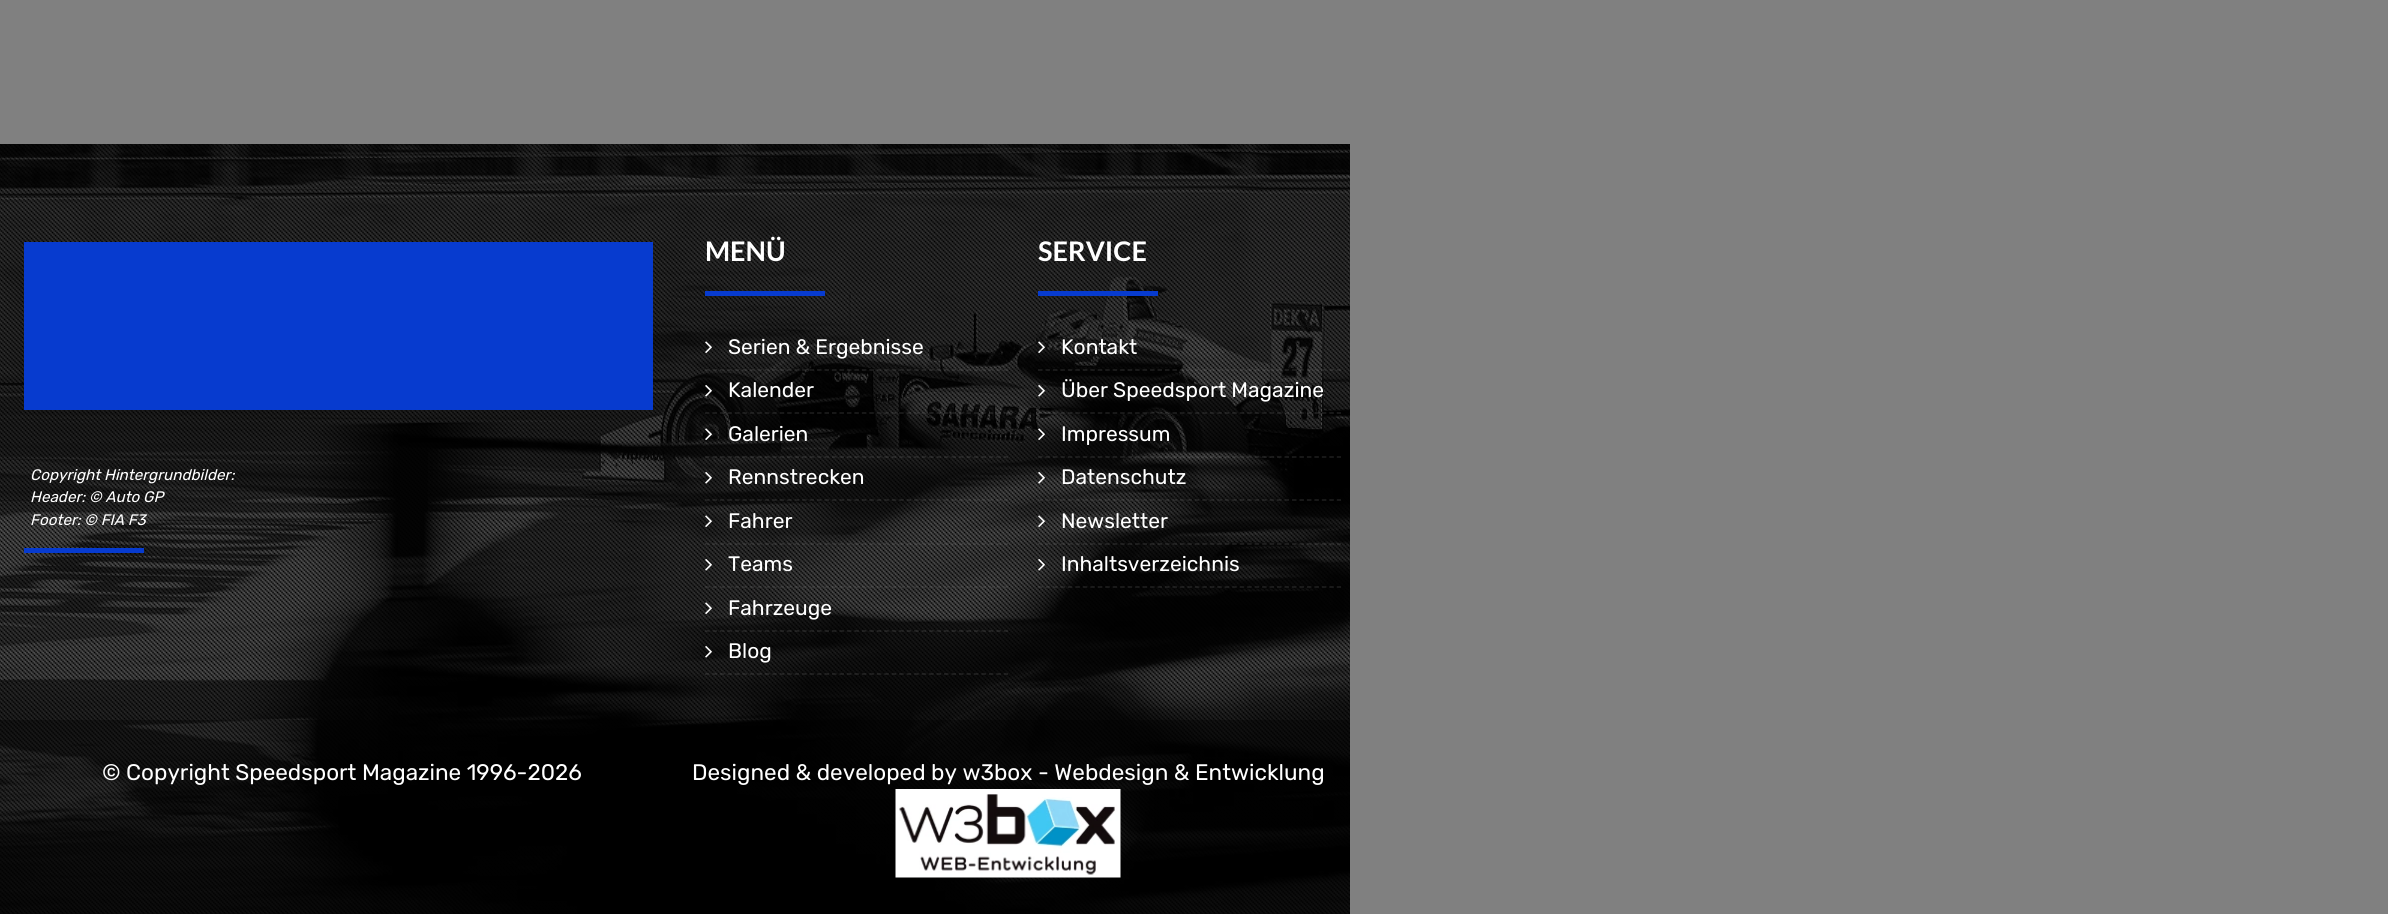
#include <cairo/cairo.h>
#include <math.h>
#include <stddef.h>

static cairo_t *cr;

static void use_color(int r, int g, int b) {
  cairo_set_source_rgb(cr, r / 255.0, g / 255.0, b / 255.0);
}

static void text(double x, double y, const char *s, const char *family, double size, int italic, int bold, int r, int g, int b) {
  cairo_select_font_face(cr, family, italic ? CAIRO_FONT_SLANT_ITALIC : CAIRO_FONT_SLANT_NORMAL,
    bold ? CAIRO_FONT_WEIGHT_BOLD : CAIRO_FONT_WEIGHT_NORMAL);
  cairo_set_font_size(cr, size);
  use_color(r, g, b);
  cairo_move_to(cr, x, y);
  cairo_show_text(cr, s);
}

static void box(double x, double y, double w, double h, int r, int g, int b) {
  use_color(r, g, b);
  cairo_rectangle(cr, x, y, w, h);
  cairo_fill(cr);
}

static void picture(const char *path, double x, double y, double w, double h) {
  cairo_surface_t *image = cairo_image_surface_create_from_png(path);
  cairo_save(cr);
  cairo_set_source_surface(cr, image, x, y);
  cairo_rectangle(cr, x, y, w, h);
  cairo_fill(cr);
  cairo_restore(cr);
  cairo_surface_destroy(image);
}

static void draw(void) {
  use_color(128, 128, 128);
  cairo_paint(cr);
  picture("img_01.png", 0, 144, 1350, 770);
  cairo_set_source_rgba(cr, 0, 0, 0, 0.7);
  cairo_rectangle(cr, 0, 144, 1350, 576);
  cairo_fill(cr);
  picture("img_02.png", 0, 144, 1350, 576);
  box(24, 242, 629, 168, 7, 59, 207);
  box(24, 548, 120, 5, 7, 59, 207);
  box(705, 291, 120, 5, 7, 59, 207);
  cairo_new_path(cr);
  cairo_move_to(cr, 705, 370);
  cairo_line_to(cr, 1008, 370);
  cairo_set_source_rgba(cr, 0.4, 0.4, 0.4, 0.3);
  cairo_set_line_width(cr, 1.5);
  cairo_set_dash(cr, (double[]){4.5, 2.97}, 2, 0);
  cairo_stroke(cr);
  picture("img_03.png", 705, 341, 7, 12);
  cairo_new_path(cr);
  cairo_move_to(cr, 705, 413);
  cairo_line_to(cr, 1008, 413);
  cairo_stroke(cr);
  picture("img_04.png", 705, 385, 7, 12);
  cairo_new_path(cr);
  cairo_move_to(cr, 705, 457);
  cairo_line_to(cr, 1008, 457);
  cairo_stroke(cr);
  picture("img_05.png", 705, 428, 7, 12);
  cairo_new_path(cr);
  cairo_move_to(cr, 705, 500);
  cairo_line_to(cr, 1008, 500);
  cairo_stroke(cr);
  picture("img_06.png", 705, 472, 7, 12);
  cairo_new_path(cr);
  cairo_move_to(cr, 705, 544);
  cairo_line_to(cr, 1008, 544);
  cairo_stroke(cr);
  picture("img_07.png", 705, 515, 7, 12);
  cairo_new_path(cr);
  cairo_move_to(cr, 705, 587);
  cairo_line_to(cr, 1008, 587);
  cairo_stroke(cr);
  picture("img_08.png", 705, 559, 7, 12);
  cairo_new_path(cr);
  cairo_move_to(cr, 705, 631);
  cairo_line_to(cr, 1008, 631);
  cairo_stroke(cr);
  picture("img_09.png", 705, 602, 7, 12);
  cairo_new_path(cr);
  cairo_move_to(cr, 705, 674);
  cairo_line_to(cr, 1008, 674);
  cairo_stroke(cr);
  picture("img_10.png", 705, 646, 7, 12);
  box(1038, 291, 120, 5, 7, 59, 207);
  cairo_new_path(cr);
  cairo_move_to(cr, 1038, 370);
  cairo_line_to(cr, 1341, 370);
  cairo_set_source_rgba(cr, 0.4, 0.4, 0.4, 0.3);
  cairo_stroke(cr);
  picture("img_11.png", 1038, 341, 7, 12);
  cairo_new_path(cr);
  cairo_move_to(cr, 1038, 413);
  cairo_line_to(cr, 1341, 413);
  cairo_stroke(cr);
  picture("img_12.png", 1038, 385, 7, 12);
  cairo_new_path(cr);
  cairo_move_to(cr, 1038, 457);
  cairo_line_to(cr, 1341, 457);
  cairo_stroke(cr);
  picture("img_13.png", 1038, 428, 7, 12);
  cairo_new_path(cr);
  cairo_move_to(cr, 1038, 500);
  cairo_line_to(cr, 1341, 500);
  cairo_stroke(cr);
  picture("img_14.png", 1038, 472, 7, 12);
  cairo_new_path(cr);
  cairo_move_to(cr, 1038, 544);
  cairo_line_to(cr, 1341, 544);
  cairo_stroke(cr);
  picture("img_15.png", 1038, 515, 7, 12);
  cairo_new_path(cr);
  cairo_move_to(cr, 1038, 587);
  cairo_line_to(cr, 1341, 587);
  cairo_stroke(cr);
  picture("img_16.png", 1038, 559, 7, 12);
  cairo_set_source_rgba(cr, 0, 0, 0, 0.8);
  cairo_rectangle(cr, 0, 720, 1350, 194);
  cairo_fill(cr);
  picture("img_17.png", 0, 720, 1350, 194);
  picture("img_18.png", 895, 789, 226, 89);
  text(30, 480, "Copyright Hintergrundbilder:", "Rubik Light", 15.25, 1, 0, 255, 255, 255);
  text(30, 502, "Header: © Auto GP", "Rubik Light", 15.25, 1, 0, 255, 255, 255);
  text(30, 525, "Footer: © FIA F3", "Rubik Light", 15.25, 1, 0, 255, 255, 255);
  text(705, 261, "MENÜ", "Lato", 27, 0, 1, 255, 255, 255);
  text(728, 354, "Serien & Ergebnisse", "Rubik Light", 21, 0, 0, 255, 255, 255);
  text(728, 397, "Kalender", "Rubik Light", 21, 0, 0, 255, 255, 255);
  text(728, 441, "Galerien", "Rubik Light", 21, 0, 0, 255, 255, 255);
  text(728, 484, "Rennstrecken", "Rubik Light", 21, 0, 0, 255, 255, 255);
  text(728, 528, "Fahrer", "Rubik Light", 21, 0, 0, 255, 255, 255);
  text(728, 571, "Teams", "Rubik Light", 21, 0, 0, 255, 255, 255);
  text(728, 615, "Fahrzeuge", "Rubik Light", 21, 0, 0, 255, 255, 255);
  text(728, 658, "Blog", "Rubik Light", 21, 0, 0, 255, 255, 255);
  text(1038, 261, "SERVICE", "Lato", 27, 0, 1, 255, 255, 255);
  text(1061, 354, "Kontakt", "Rubik Light", 21, 0, 0, 255, 255, 255);
  text(1061, 397, "Über Speedsport Magazine", "Rubik Light", 21, 0, 0, 255, 255, 255);
  text(1061, 441, "Impressum", "Rubik Light", 21, 0, 0, 255, 255, 255);
  text(1061, 484, "Datenschutz", "Rubik Light", 21, 0, 0, 255, 255, 255);
  text(1061, 528, "Newsletter", "Rubik Light", 21, 0, 0, 255, 255, 255);
  text(1061, 571, "Inhaltsverzeichnis", "Rubik Light", 21, 0, 0, 255, 255, 255);
  text(102, 780, "© Copyright Speedsport Magazine 1996-2026", "Rubik Light", 22.5, 0, 0, 255, 255, 255);
  text(692, 780, "Designed & developed by w3box - Webdesign & Entwicklung", "Rubik Light", 22.5, 0, 0, 255, 255, 255);
}

int main(void) {
  cairo_surface_t *surface = cairo_image_surface_create(CAIRO_FORMAT_RGB24, 2388, 914);
  cr = cairo_create(surface);
  cairo_font_options_t *options = cairo_font_options_create();
  cairo_font_options_set_hint_metrics(options, CAIRO_HINT_METRICS_OFF);
  cairo_font_options_set_hint_style(options, CAIRO_HINT_STYLE_NONE);
  cairo_set_font_options(cr, options);
  cairo_set_miter_limit(cr, 4);
  draw();
  cairo_surface_write_to_png(surface, "out.png");
  cairo_font_options_destroy(options);
  cairo_destroy(cr);
  cairo_surface_destroy(surface);
  return 0;
}
